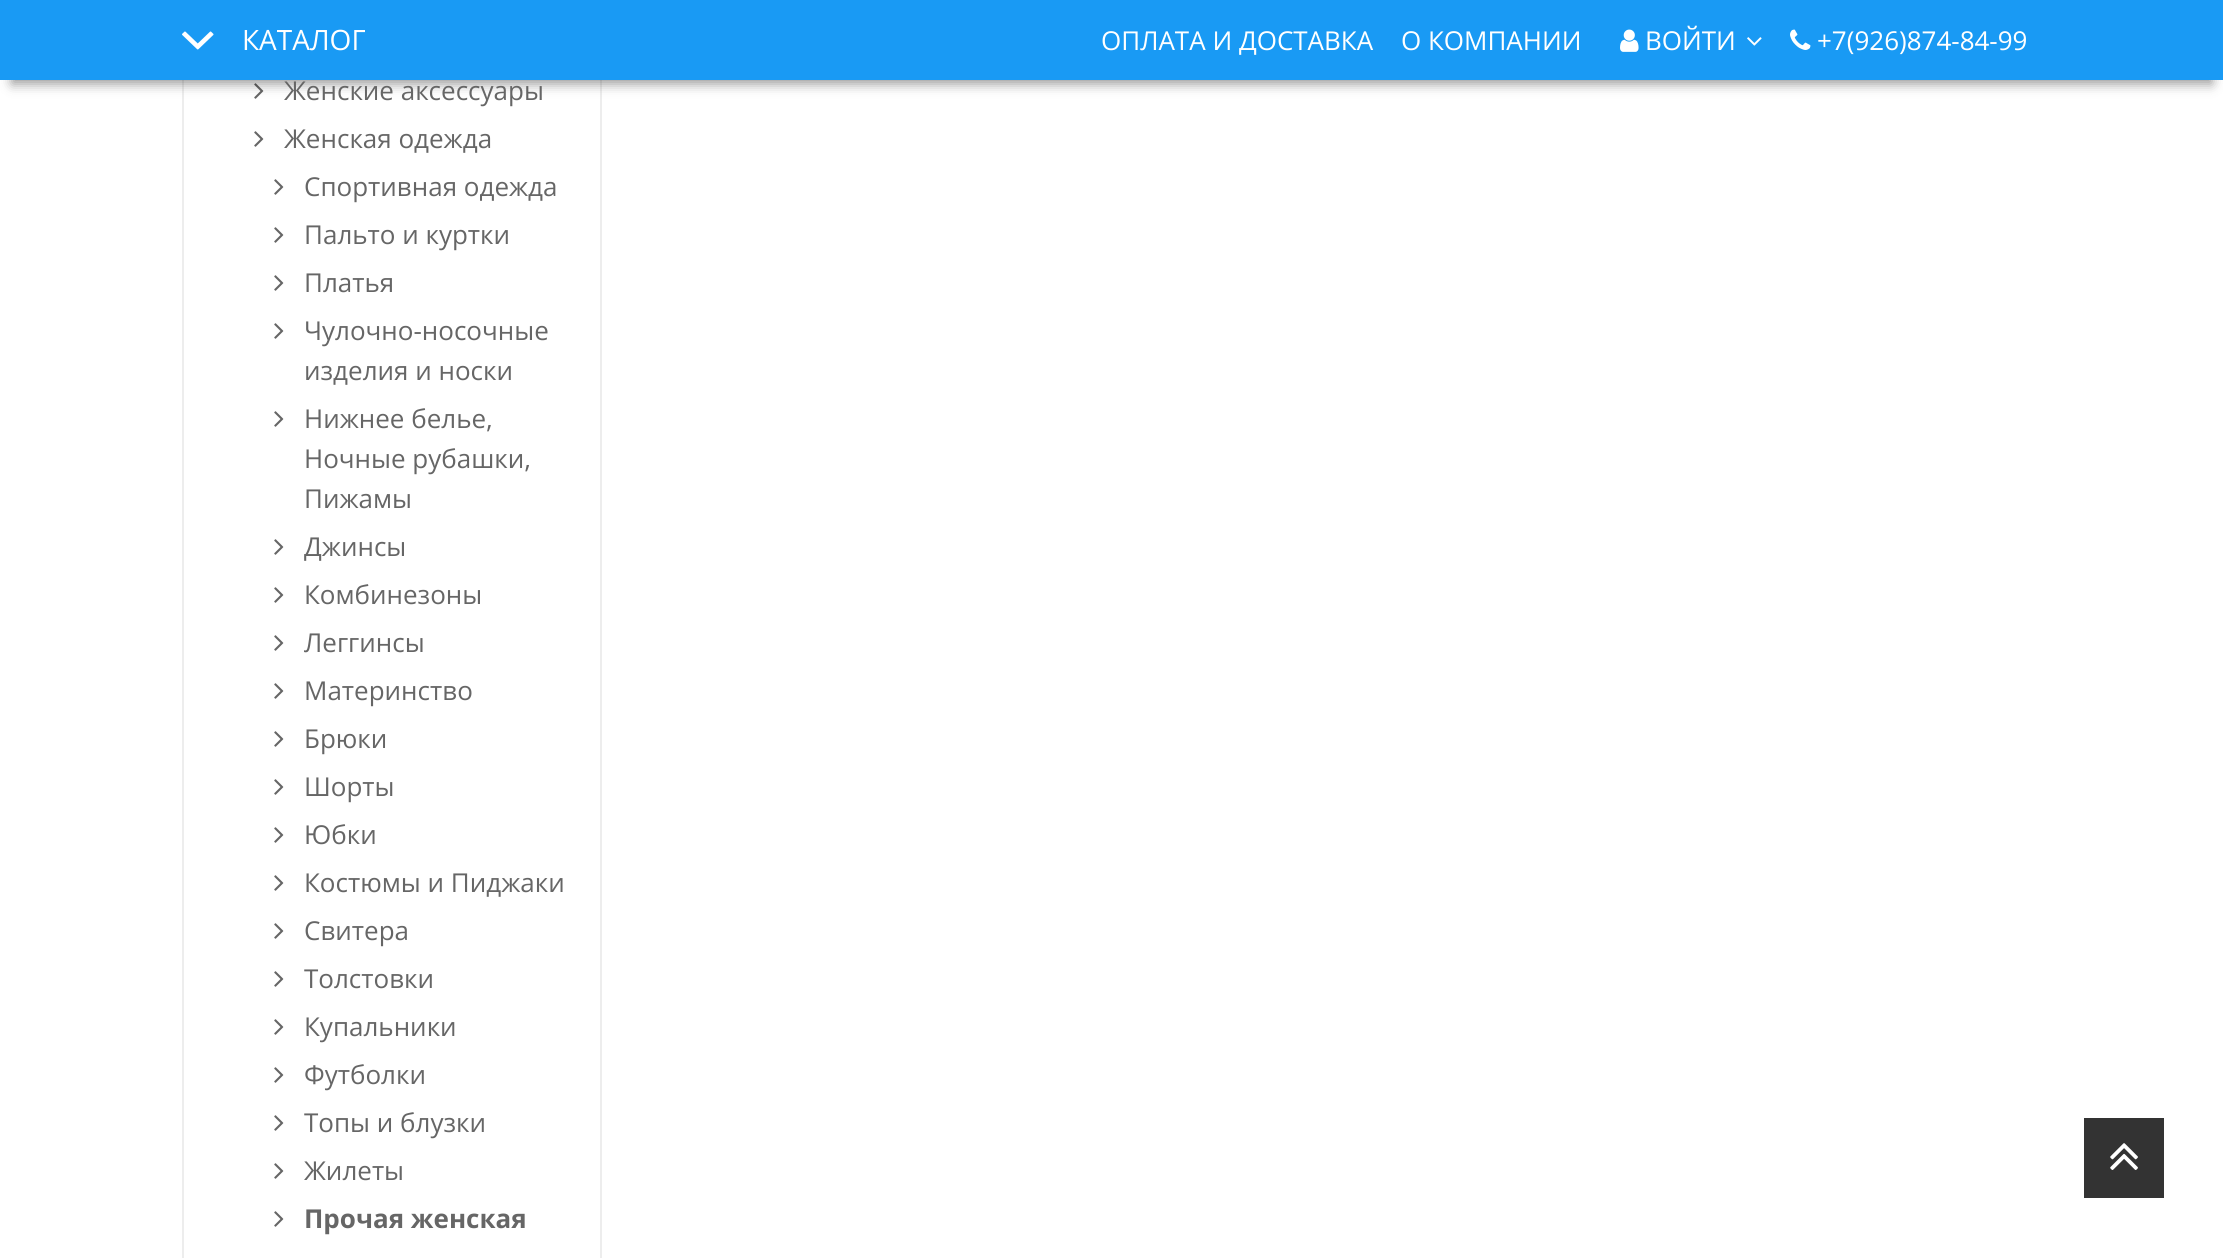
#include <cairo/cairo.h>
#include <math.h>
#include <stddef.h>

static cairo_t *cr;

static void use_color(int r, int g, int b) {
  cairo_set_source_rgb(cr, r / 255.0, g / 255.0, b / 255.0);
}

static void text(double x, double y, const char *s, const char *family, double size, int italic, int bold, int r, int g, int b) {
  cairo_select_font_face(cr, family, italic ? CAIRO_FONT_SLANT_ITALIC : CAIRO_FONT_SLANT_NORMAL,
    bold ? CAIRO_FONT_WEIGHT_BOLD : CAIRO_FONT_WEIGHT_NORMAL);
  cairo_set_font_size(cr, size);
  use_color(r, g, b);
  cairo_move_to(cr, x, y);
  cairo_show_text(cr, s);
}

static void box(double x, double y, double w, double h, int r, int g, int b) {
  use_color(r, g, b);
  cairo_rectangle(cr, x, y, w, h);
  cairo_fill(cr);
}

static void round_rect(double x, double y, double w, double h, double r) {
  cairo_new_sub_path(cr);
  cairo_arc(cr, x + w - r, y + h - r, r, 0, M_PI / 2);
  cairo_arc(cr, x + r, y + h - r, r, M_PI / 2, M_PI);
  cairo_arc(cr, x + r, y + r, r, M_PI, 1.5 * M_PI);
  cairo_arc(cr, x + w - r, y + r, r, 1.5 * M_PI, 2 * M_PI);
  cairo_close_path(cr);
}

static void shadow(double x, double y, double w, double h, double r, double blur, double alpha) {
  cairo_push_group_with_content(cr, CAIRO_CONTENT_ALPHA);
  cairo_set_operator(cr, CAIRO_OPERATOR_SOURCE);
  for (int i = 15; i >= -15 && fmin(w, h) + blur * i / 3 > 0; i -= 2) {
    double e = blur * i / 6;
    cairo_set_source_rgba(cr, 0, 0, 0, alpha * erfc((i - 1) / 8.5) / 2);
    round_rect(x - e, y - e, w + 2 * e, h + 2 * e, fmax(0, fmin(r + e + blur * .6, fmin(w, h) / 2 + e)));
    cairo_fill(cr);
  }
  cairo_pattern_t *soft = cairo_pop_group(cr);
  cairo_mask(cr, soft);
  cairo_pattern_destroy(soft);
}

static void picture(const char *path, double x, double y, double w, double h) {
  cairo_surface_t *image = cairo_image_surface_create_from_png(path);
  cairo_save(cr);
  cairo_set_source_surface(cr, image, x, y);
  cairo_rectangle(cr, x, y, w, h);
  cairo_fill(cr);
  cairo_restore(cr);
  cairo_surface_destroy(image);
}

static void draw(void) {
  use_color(255, 255, 255);
  cairo_paint(cr);
  cairo_rectangle(cr, 183, -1, 418, 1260);
  use_color(237, 237, 237);
  cairo_stroke(cr);
  picture("img_05.png", 254, 83, 10, 16);
  use_color(0, 0, 0);
  shadow(12, 28, 2200, 56, 0, 6, 0.4);
  box(0, 0, 2223, 80, 25, 154, 244);
  picture("img_01.png", 182, 31, 32, 19);
  picture("img_02.png", 1620, 29, 19, 23);
  picture("img_03.png", 1747, 37, 15, 9);
  picture("img_04.png", 1790, 29, 21, 21);
  picture("img_05.png", 254, 131, 10, 16);
  picture("img_05.png", 274, 179, 10, 16);
  picture("img_05.png", 274, 227, 10, 16);
  picture("img_05.png", 274, 275, 10, 16);
  picture("img_05.png", 274, 323, 10, 16);
  picture("img_05.png", 274, 411, 10, 16);
  picture("img_05.png", 274, 539, 10, 16);
  picture("img_05.png", 274, 587, 10, 16);
  picture("img_05.png", 274, 635, 10, 16);
  picture("img_05.png", 274, 683, 10, 16);
  picture("img_05.png", 274, 731, 10, 16);
  picture("img_05.png", 274, 779, 10, 16);
  picture("img_05.png", 274, 827, 10, 16);
  picture("img_05.png", 274, 875, 10, 16);
  picture("img_05.png", 274, 923, 10, 16);
  picture("img_05.png", 274, 971, 10, 16);
  picture("img_05.png", 274, 1019, 10, 16);
  picture("img_05.png", 274, 1067, 10, 16);
  picture("img_05.png", 274, 1115, 10, 16);
  picture("img_05.png", 274, 1163, 10, 16);
  picture("img_05.png", 274, 1211, 10, 16);
  box(2084, 1118, 80, 80, 51, 51, 51);
  picture("img_06.png", 2110, 1143, 28, 27);
  text(242, 50, "КАТАЛОГ", "Open Sans", 28, 0, 0, 255, 255, 255);
  text(1101, 50, "ОПЛАТА И ДОСТАВКА", "Open Sans", 26, 0, 0, 255, 255, 255);
  text(1401, 50, "О КОМПАНИИ", "Open Sans", 26, 0, 0, 255, 255, 255);
  text(1645, 50, "ВОЙТИ", "Open Sans", 26, 0, 0, 255, 255, 255);
  text(1817, 50, "+7(926)874-84-99", "Open Sans", 26, 0, 0, 255, 255, 255);
  text(284, 100, "Женские аксессуары", "Open Sans", 26, 0, 0, 102, 102, 102);
  text(284, 148, "Женская одежда", "Open Sans", 26, 0, 0, 102, 102, 102);
  text(304, 196, "Спортивная одежда", "Open Sans", 26, 0, 0, 102, 102, 102);
  text(304, 244, "Пальто и куртки", "Open Sans", 26, 0, 0, 102, 102, 102);
  text(304, 292, "Платья", "Open Sans", 26, 0, 0, 102, 102, 102);
  text(304, 340, "Чулочно-носочные", "Open Sans", 26, 0, 0, 102, 102, 102);
  text(304, 380, "изделия и носки", "Open Sans", 26, 0, 0, 102, 102, 102);
  text(304, 428, "Нижнее белье,", "Open Sans", 26, 0, 0, 102, 102, 102);
  text(304, 468, "Ночные рубашки,", "Open Sans", 26, 0, 0, 102, 102, 102);
  text(304, 508, "Пижамы", "Open Sans", 26, 0, 0, 102, 102, 102);
  text(304, 556, "Джинсы", "Open Sans", 26, 0, 0, 102, 102, 102);
  text(304, 604, "Комбинезоны", "Open Sans", 26, 0, 0, 102, 102, 102);
  text(304, 652, "Леггинсы", "Open Sans", 26, 0, 0, 102, 102, 102);
  text(304, 700, "Материнство", "Open Sans", 26, 0, 0, 102, 102, 102);
  text(304, 748, "Брюки", "Open Sans", 26, 0, 0, 102, 102, 102);
  text(304, 796, "Шорты", "Open Sans", 26, 0, 0, 102, 102, 102);
  text(304, 844, "Юбки", "Open Sans", 26, 0, 0, 102, 102, 102);
  text(304, 892, "Костюмы и Пиджаки", "Open Sans", 26, 0, 0, 102, 102, 102);
  text(304, 940, "Свитера", "Open Sans", 26, 0, 0, 102, 102, 102);
  text(304, 988, "Толстовки", "Open Sans", 26, 0, 0, 102, 102, 102);
  text(304, 1036, "Купальники", "Open Sans", 26, 0, 0, 102, 102, 102);
  text(304, 1084, "Футболки", "Open Sans", 26, 0, 0, 102, 102, 102);
  text(304, 1132, "Топы и блузки", "Open Sans", 26, 0, 0, 102, 102, 102);
  text(304, 1180, "Жилеты", "Open Sans", 26, 0, 0, 102, 102, 102);
  text(304, 1228, "Прочая женская", "Open Sans", 26, 0, 1, 102, 102, 102);
}

int main(void) {
  cairo_surface_t *surface = cairo_image_surface_create(CAIRO_FORMAT_RGB24, 2223, 1258);
  cr = cairo_create(surface);
  cairo_font_options_t *options = cairo_font_options_create();
  cairo_font_options_set_hint_metrics(options, CAIRO_HINT_METRICS_OFF);
  cairo_font_options_set_hint_style(options, CAIRO_HINT_STYLE_NONE);
  cairo_set_font_options(cr, options);
  cairo_set_miter_limit(cr, 4);
  draw();
  cairo_surface_write_to_png(surface, "out.png");
  cairo_font_options_destroy(options);
  cairo_destroy(cr);
  cairo_surface_destroy(surface);
  return 0;
}
